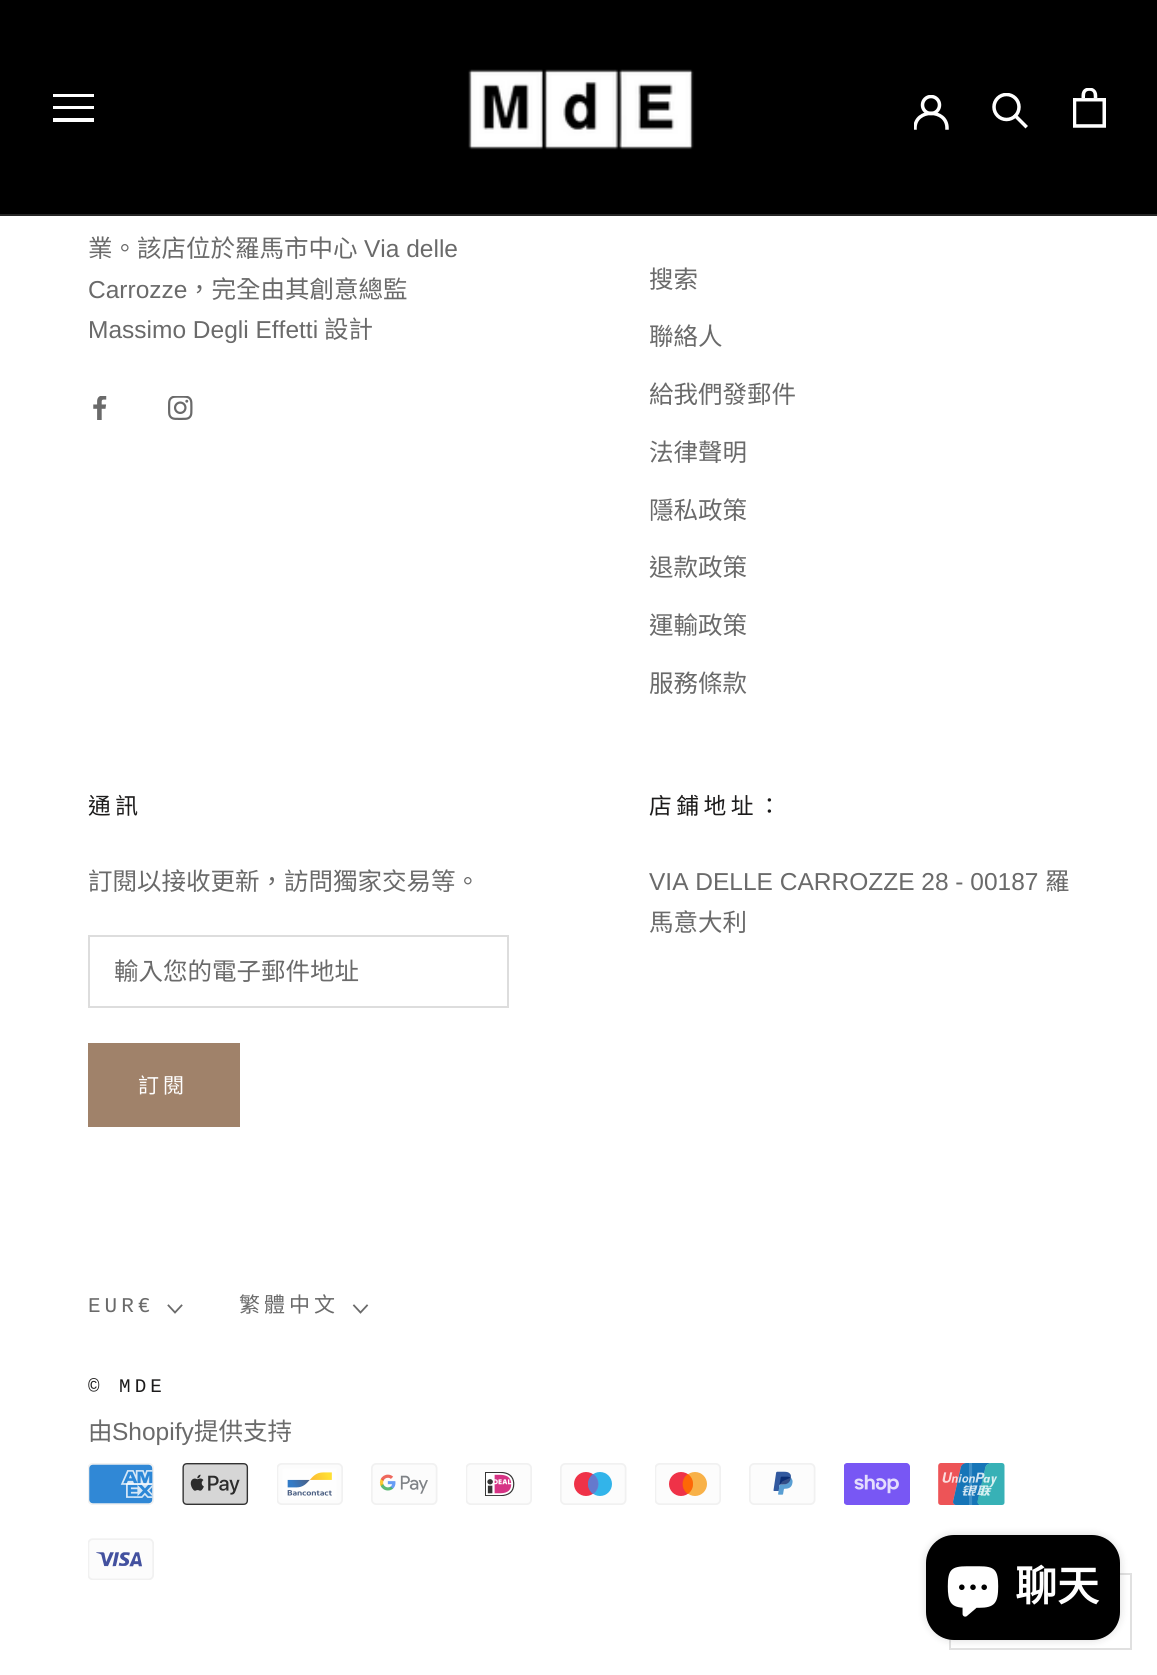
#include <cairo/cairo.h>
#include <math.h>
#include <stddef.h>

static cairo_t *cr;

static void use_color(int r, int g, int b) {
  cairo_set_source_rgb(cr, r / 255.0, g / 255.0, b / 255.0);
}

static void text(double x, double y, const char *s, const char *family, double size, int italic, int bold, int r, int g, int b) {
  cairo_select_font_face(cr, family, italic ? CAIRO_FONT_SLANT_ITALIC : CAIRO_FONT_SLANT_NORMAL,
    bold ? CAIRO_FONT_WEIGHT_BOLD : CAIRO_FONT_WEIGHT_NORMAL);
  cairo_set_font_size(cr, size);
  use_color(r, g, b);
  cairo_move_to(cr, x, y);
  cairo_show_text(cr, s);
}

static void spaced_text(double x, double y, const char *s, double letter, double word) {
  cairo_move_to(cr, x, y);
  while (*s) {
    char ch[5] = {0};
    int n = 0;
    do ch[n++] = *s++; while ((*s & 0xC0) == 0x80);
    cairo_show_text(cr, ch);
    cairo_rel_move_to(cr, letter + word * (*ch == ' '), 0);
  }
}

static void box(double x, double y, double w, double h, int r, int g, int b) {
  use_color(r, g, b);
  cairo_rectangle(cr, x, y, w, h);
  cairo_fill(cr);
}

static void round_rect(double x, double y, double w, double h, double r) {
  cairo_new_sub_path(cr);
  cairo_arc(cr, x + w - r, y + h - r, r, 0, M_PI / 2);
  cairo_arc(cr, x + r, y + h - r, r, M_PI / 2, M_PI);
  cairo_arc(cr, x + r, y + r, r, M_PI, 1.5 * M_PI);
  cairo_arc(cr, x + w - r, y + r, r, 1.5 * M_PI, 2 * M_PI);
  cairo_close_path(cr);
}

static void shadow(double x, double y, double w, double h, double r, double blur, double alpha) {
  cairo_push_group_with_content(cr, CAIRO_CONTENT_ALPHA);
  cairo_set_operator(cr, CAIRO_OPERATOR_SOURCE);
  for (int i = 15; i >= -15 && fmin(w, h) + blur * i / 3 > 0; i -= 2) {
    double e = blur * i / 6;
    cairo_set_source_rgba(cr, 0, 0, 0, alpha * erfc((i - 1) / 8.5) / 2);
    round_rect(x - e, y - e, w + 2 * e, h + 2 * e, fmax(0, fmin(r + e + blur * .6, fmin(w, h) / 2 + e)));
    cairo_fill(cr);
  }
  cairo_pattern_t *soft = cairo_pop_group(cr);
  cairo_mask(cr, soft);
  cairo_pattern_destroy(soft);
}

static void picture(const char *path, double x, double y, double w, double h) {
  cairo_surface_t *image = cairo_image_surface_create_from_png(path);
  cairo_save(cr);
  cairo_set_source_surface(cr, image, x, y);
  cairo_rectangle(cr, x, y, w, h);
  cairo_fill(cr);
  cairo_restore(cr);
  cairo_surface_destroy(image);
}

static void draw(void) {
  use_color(255, 255, 255);
  cairo_paint(cr);
  box(0, 0, 1157, 214, 0, 0, 0);
  box(0, 214, 1157, 2, 38, 38, 38);
  cairo_save(cr);
  cairo_rectangle(cr, 53, 93, 42, 30);
  cairo_clip(cr);
  use_color(255, 255, 255);
  cairo_new_path(cr);
  cairo_move_to(cr, 52, 122);
  cairo_line_to(cr, 52, 118);
  cairo_line_to(cr, 94, 118);
  cairo_line_to(cr, 94, 122);
  cairo_close_path(cr);
  cairo_move_to(cr, 52, 106);
  cairo_line_to(cr, 94, 106);
  cairo_line_to(cr, 94, 109);
  cairo_line_to(cr, 52, 109);
  cairo_close_path(cr);
  cairo_move_to(cr, 52, 94);
  cairo_line_to(cr, 94, 94);
  cairo_line_to(cr, 94, 97);
  cairo_line_to(cr, 52, 97);
  cairo_close_path(cr);
  cairo_fill(cr);
  cairo_restore(cr);
  picture("img_01.png", 468, 69, 226, 81);
  cairo_save(cr);
  cairo_rectangle(cr, 914, 95, 35, 35);
  cairo_clip(cr);
  cairo_new_path(cr);
  cairo_move_to(cr, 915, 128);
  cairo_curve_to(cr, 915, 108.5, 947, 108.5, 947, 128);
  use_color(255, 255, 255);
  cairo_set_line_width(cr, 3.5);
  cairo_set_line_cap(cr, CAIRO_LINE_CAP_SQUARE);
  cairo_stroke(cr);
  cairo_arc(cr, 931, 105, 8.5, 0, 2 * M_PI);
  cairo_set_line_cap(cr, CAIRO_LINE_CAP_BUTT);
  cairo_stroke(cr);
  cairo_restore(cr);
  cairo_new_path(cr);
  cairo_move_to(cr, 1025.5, 126);
  cairo_line_to(cr, 1015.5, 116);
  use_color(255, 255, 255);
  cairo_set_line_width(cr, 3.5);
  cairo_set_line_cap(cr, CAIRO_LINE_CAP_SQUARE);
  cairo_stroke(cr);
  cairo_save(cr);
  cairo_rectangle(cr, 992, 93, 37, 37);
  cairo_clip(cr);
  cairo_arc(cr, 1006.5, 107, 12.5, 0, 2 * M_PI);
  cairo_set_line_cap(cr, CAIRO_LINE_CAP_BUTT);
  cairo_stroke(cr);
  cairo_restore(cr);
  picture("img_02.png", 1073, 88, 33, 40);
  picture("img_03.png", 93, 396, 14, 24);
  picture("img_04.png", 168, 396, 25, 24);
  cairo_rectangle(cr, 89, 936, 419, 71);
  use_color(221, 221, 221);
  cairo_set_line_width(cr, 2);
  cairo_set_line_cap(cr, CAIRO_LINE_CAP_BUTT);
  cairo_stroke(cr);
  cairo_rectangle(cr, 89, 1044, 150, 82);
  use_color(160, 130, 106);
  cairo_stroke(cr);
  box(90, 1045, 148, 80, 160, 130, 106);
  cairo_new_path(cr);
  cairo_move_to(cr, 181.5, 1305.5);
  cairo_line_to(cr, 175, 1312.5);
  cairo_line_to(cr, 168.5, 1305.5);
  use_color(106, 106, 106);
  cairo_set_line_width(cr, 1.8);
  cairo_set_line_cap(cr, CAIRO_LINE_CAP_SQUARE);
  cairo_stroke(cr);
  cairo_new_path(cr);
  cairo_move_to(cr, 367, 1305.5);
  cairo_line_to(cr, 360.5, 1312.5);
  cairo_line_to(cr, 354, 1305.5);
  cairo_stroke(cr);
  picture("img_05.png", 88, 1463, 66, 42);
  picture("img_06.png", 182, 1463, 67, 42);
  picture("img_07.png", 277, 1463, 66, 42);
  picture("img_08.png", 371, 1463, 67, 42);
  picture("img_09.png", 466, 1463, 66, 42);
  picture("img_10.png", 560, 1463, 67, 42);
  picture("img_11.png", 655, 1463, 66, 42);
  picture("img_12.png", 749, 1463, 67, 42);
  picture("img_13.png", 844, 1463, 66, 42);
  picture("img_14.png", 938, 1463, 67, 42);
  picture("img_15.png", 88, 1538, 66, 42);
  cairo_rectangle(cr, 950, 1574, 181, 75);
  use_color(224, 224, 224);
  cairo_set_line_width(cr, 2);
  cairo_set_line_cap(cr, CAIRO_LINE_CAP_BUTT);
  cairo_stroke(cr);
  use_color(0, 0, 0);
  shadow(926, 1535, 194, 105, 28, 4.5, 0.15);
  use_color(0, 0, 0);
  round_rect(926, 1535, 194, 105, 28);
  cairo_fill(cr);
  picture("img_16.png", 947, 1566, 52, 51);
  text(88, 257, "業。該店位於羅馬市中心", "Noto Sans CJK TC", 24.5, 0, 0, 106, 106, 106);
  text(364, 257, "Via delle", "Liberation Sans", 24.5, 0, 0, 106, 106, 106);
  text(88, 298, "Carrozze", "Liberation Sans", 24.5, 0, 0, 106, 106, 106);
  text(187, 298, "，完全由其創意總監", "Noto Sans CJK TC", 24.5, 0, 0, 106, 106, 106);
  text(88, 338, "Massimo Degli Effetti", "Liberation Sans", 24.5, 0, 0, 106, 106, 106);
  text(324, 338, "設計", "Noto Sans CJK TC", 24.5, 0, 0, 106, 106, 106);
  text(649, 288, "搜索", "Noto Sans CJK TC", 24.5, 0, 0, 106, 106, 106);
  text(649, 345, "聯絡人", "Noto Sans CJK TC", 24.5, 0, 0, 106, 106, 106);
  text(649, 403, "給我們發郵件", "Noto Sans CJK TC", 24.5, 0, 0, 106, 106, 106);
  text(649, 461, "法律聲明", "Noto Sans CJK TC", 24.5, 0, 0, 106, 106, 106);
  text(649, 519, "隱私政策", "Noto Sans CJK TC", 24.5, 0, 0, 106, 106, 106);
  text(649, 576, "退款政策", "Noto Sans CJK TC", 24.5, 0, 0, 106, 106, 106);
  text(649, 634, "運輸政策", "Noto Sans CJK TC", 24.5, 0, 0, 106, 106, 106);
  text(649, 692, "服務條款", "Noto Sans CJK TC", 24.5, 0, 0, 106, 106, 106);
  cairo_set_font_size(cr, 22.75);
  use_color(28, 27, 27);
  spaced_text(88, 814, "通訊", 4.5, 0);
  text(88, 890, "訂閱以接收更新，訪問獨家交易等。", "Noto Sans CJK TC", 24.5, 0, 0, 106, 106, 106);
  text(114, 980, "輸入您的電子郵件地址", "Noto Sans CJK TC", 24.5, 0, 0, 106, 106, 106);
  cairo_set_font_size(cr, 21);
  use_color(255, 255, 255);
  spaced_text(138, 1093, "訂閱", 4, 0);
  cairo_set_font_size(cr, 22.75);
  use_color(28, 27, 27);
  spaced_text(649, 814, "店鋪地址：", 4.5, 0);
  text(649, 890, "VIA DELLE CARROZZE 28 - 00187", "Liberation Sans", 24.5, 0, 0, 106, 106, 106);
  text(1045, 890, "羅", "Noto Sans CJK TC", 24.5, 0, 0, 106, 106, 106);
  text(649, 931, "馬意大利", "Noto Sans CJK TC", 24.5, 0, 0, 106, 106, 106);
  cairo_select_font_face(cr, "Liberation Mono", CAIRO_FONT_SLANT_NORMAL, CAIRO_FONT_WEIGHT_NORMAL);
  cairo_set_font_size(cr, 21);
  spaced_text(88, 1312, "EUR€", 4, 0);
  cairo_select_font_face(cr, "Noto Sans CJK TC", CAIRO_FONT_SLANT_NORMAL, CAIRO_FONT_WEIGHT_NORMAL);
  spaced_text(239, 1312, "繁體中文", 4, 0);
  cairo_select_font_face(cr, "Liberation Mono", CAIRO_FONT_SLANT_NORMAL, CAIRO_FONT_WEIGHT_NORMAL);
  cairo_set_font_size(cr, 19.25);
  use_color(28, 27, 27);
  spaced_text(88, 1392, "© MDE", 4, 0);
  text(88, 1440, "由", "Noto Sans CJK TC", 24.5, 0, 0, 106, 106, 106);
  text(112, 1440, "Shopify", "Liberation Sans", 24.5, 0, 0, 106, 106, 106);
  text(194, 1440, "提供支持", "Noto Sans CJK TC", 24.5, 0, 0, 106, 106, 106);
  text(1015, 1601, "聊天", "Noto Sans CJK TC", 42, 0, 1, 255, 255, 255);
}

int main(void) {
  cairo_surface_t *surface = cairo_image_surface_create(CAIRO_FORMAT_RGB24, 1157, 1675);
  cr = cairo_create(surface);
  cairo_font_options_t *options = cairo_font_options_create();
  cairo_font_options_set_hint_metrics(options, CAIRO_HINT_METRICS_OFF);
  cairo_font_options_set_hint_style(options, CAIRO_HINT_STYLE_NONE);
  cairo_set_font_options(cr, options);
  cairo_set_miter_limit(cr, 4);
  draw();
  cairo_surface_write_to_png(surface, "out.png");
  cairo_font_options_destroy(options);
  cairo_destroy(cr);
  cairo_surface_destroy(surface);
  return 0;
}
